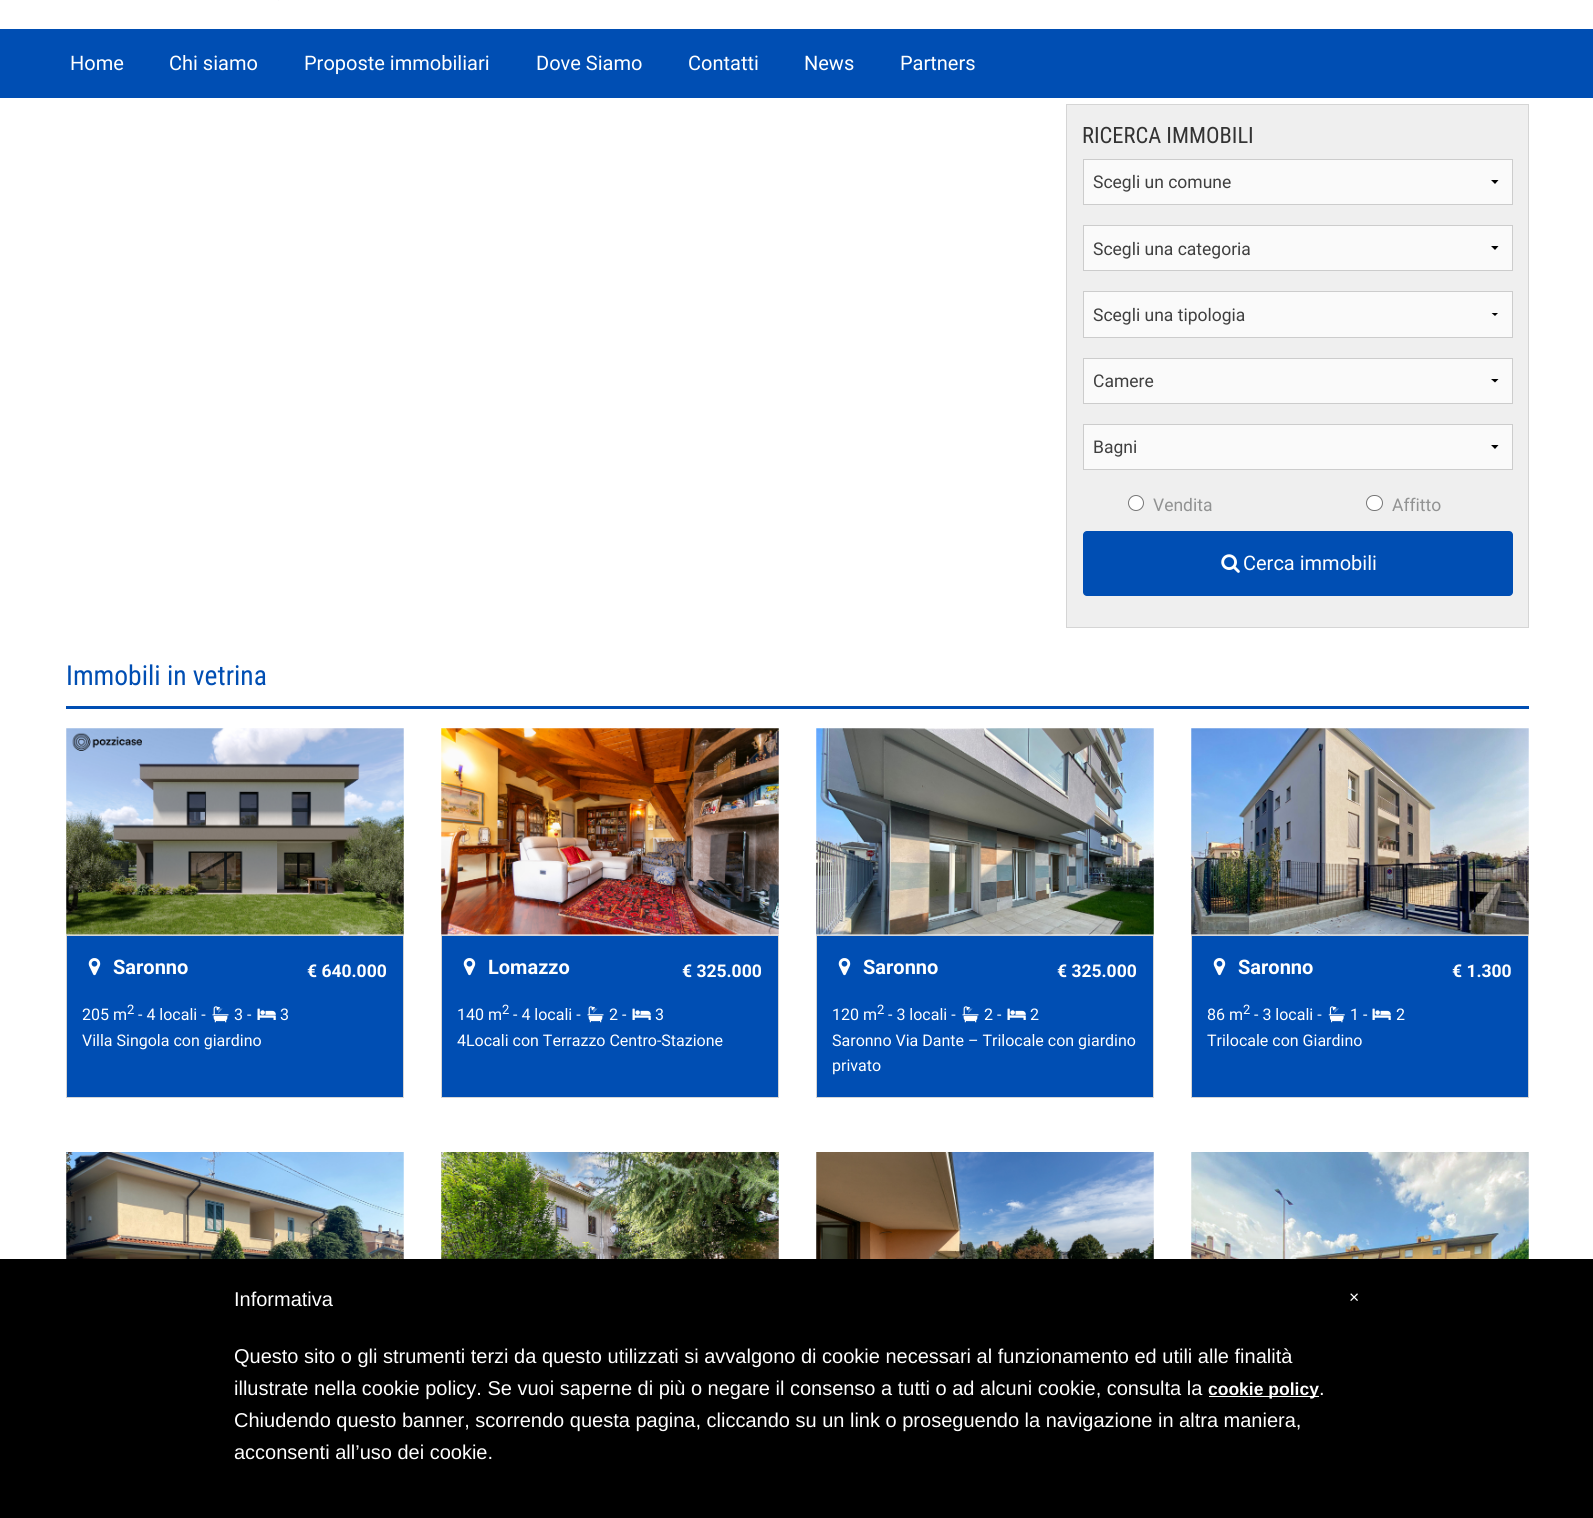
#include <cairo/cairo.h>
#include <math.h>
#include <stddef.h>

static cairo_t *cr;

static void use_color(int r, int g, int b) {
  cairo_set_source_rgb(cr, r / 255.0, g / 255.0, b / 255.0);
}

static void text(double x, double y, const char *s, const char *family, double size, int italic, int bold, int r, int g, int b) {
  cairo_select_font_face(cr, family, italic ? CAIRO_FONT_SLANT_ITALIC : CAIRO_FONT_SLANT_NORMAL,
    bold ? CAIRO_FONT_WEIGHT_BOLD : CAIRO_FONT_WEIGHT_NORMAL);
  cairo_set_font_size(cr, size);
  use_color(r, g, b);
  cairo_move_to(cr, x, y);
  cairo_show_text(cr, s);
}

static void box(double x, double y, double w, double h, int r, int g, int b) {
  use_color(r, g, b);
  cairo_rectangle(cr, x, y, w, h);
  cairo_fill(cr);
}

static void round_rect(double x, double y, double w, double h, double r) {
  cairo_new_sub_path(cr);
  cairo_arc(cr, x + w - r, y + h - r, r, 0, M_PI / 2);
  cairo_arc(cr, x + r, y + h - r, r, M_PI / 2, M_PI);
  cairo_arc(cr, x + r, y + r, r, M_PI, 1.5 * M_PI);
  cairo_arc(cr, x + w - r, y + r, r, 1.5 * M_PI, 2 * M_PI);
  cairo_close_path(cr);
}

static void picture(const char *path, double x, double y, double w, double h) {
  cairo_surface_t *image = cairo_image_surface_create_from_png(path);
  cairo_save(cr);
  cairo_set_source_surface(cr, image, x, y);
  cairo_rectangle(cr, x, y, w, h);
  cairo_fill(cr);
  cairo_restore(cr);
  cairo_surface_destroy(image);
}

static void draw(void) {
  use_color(255, 255, 255);
  cairo_paint(cr);
  box(278, 0, 1, 1, 251, 250, 252);
  box(0, 29, 1593, 69, 0, 78, 179);
  use_color(239, 239, 239);
  cairo_rectangle(cr, 1066.5, 104.5, 462, 523);
  cairo_fill_preserve(cr);
  use_color(213, 213, 213);
  cairo_set_line_width(cr, 1);
  cairo_stroke(cr);
  box(1084, 160, 428, 44, 250, 250, 250);
  use_color(0, 0, 0);
  cairo_new_path(cr);
  cairo_move_to(cr, 1498.5, 180);
  cairo_line_to(cr, 1495, 184);
  cairo_line_to(cr, 1491, 180);
  cairo_close_path(cr);
  cairo_fill(cr);
  cairo_rectangle(cr, 1083.5, 159.5, 429, 45);
  use_color(204, 204, 204);
  cairo_stroke(cr);
  box(1084, 226, 428, 44, 250, 250, 250);
  use_color(0, 0, 0);
  cairo_new_path(cr);
  cairo_move_to(cr, 1498.5, 246);
  cairo_line_to(cr, 1495, 250);
  cairo_line_to(cr, 1491, 246);
  cairo_close_path(cr);
  cairo_fill(cr);
  cairo_rectangle(cr, 1083.5, 225.5, 429, 45);
  use_color(204, 204, 204);
  cairo_stroke(cr);
  box(1084, 292, 428, 45, 250, 250, 250);
  cairo_save(cr);
  cairo_rectangle(cr, 1480, 313, 30, 4);
  cairo_clip(cr);
  use_color(0, 0, 0);
  cairo_new_path(cr);
  cairo_move_to(cr, 1498.5, 312.5);
  cairo_line_to(cr, 1495, 316);
  cairo_line_to(cr, 1491, 312.5);
  cairo_close_path(cr);
  cairo_fill(cr);
  cairo_restore(cr);
  cairo_rectangle(cr, 1083.5, 291.5, 429, 46);
  use_color(204, 204, 204);
  cairo_stroke(cr);
  box(1084, 359, 428, 44, 250, 250, 250);
  use_color(0, 0, 0);
  cairo_new_path(cr);
  cairo_move_to(cr, 1498.5, 379);
  cairo_line_to(cr, 1495, 382.5);
  cairo_line_to(cr, 1491, 379);
  cairo_close_path(cr);
  cairo_fill(cr);
  cairo_rectangle(cr, 1083.5, 358.5, 429, 45);
  use_color(204, 204, 204);
  cairo_stroke(cr);
  box(1084, 425, 428, 44, 250, 250, 250);
  use_color(0, 0, 0);
  cairo_new_path(cr);
  cairo_move_to(cr, 1498.5, 445);
  cairo_line_to(cr, 1495, 449);
  cairo_line_to(cr, 1491, 445);
  cairo_close_path(cr);
  cairo_fill(cr);
  cairo_rectangle(cr, 1083.5, 424.5, 429, 45);
  use_color(204, 204, 204);
  cairo_stroke(cr);
  use_color(255, 255, 255);
  cairo_arc(cr, 1136, 503, 7.5, 0, 2 * M_PI);
  cairo_fill_preserve(cr);
  use_color(118, 118, 118);
  cairo_stroke(cr);
  use_color(255, 255, 255);
  round_rect(1366.5, 495.5, 16, 15, 7.5);
  cairo_fill_preserve(cr);
  use_color(118, 118, 118);
  cairo_stroke(cr);
  use_color(0, 78, 179);
  round_rect(1083, 531, 430, 65, 4);
  cairo_fill(cr);
  picture("img_01.png", 1221, 554, 19, 19);
  box(66, 706, 1463, 3, 0, 78, 179);
  picture("img_02.png", 66, 728, 338, 207);
  cairo_rectangle(cr, 66.5, 935.5, 337, 162);
  cairo_fill_preserve(cr);
  use_color(213, 213, 213);
  cairo_stroke(cr);
  picture("img_03.png", 88, 958, 13, 18);
  picture("img_04.png", 212, 1006, 17, 17);
  picture("img_05.png", 257, 1008, 19, 12);
  picture("img_06.png", 441, 728, 338, 207);
  use_color(0, 78, 179);
  cairo_rectangle(cr, 441.5, 935.5, 337, 162);
  cairo_fill_preserve(cr);
  use_color(213, 213, 213);
  cairo_stroke(cr);
  picture("img_03.png", 463, 958, 13, 18);
  picture("img_04.png", 587, 1006, 17, 17);
  picture("img_05.png", 632, 1008, 19, 12);
  picture("img_07.png", 816, 728, 338, 207);
  use_color(0, 78, 179);
  cairo_rectangle(cr, 816.5, 935.5, 337, 162);
  cairo_fill_preserve(cr);
  use_color(213, 213, 213);
  cairo_stroke(cr);
  picture("img_03.png", 838, 958, 13, 18);
  picture("img_04.png", 962, 1006, 17, 17);
  picture("img_05.png", 1007, 1008, 19, 12);
  picture("img_08.png", 1191, 728, 338, 207);
  use_color(0, 78, 179);
  cairo_rectangle(cr, 1191.5, 935.5, 337, 162);
  cairo_fill_preserve(cr);
  use_color(213, 213, 213);
  cairo_stroke(cr);
  picture("img_03.png", 1213, 958, 13, 18);
  picture("img_09.png", 1328, 1006, 17, 17);
  picture("img_05.png", 1372, 1008, 19, 12);
  picture("img_10.png", 66, 1152, 338, 107);
  picture("img_11.png", 441, 1152, 338, 107);
  picture("img_12.png", 816, 1152, 338, 107);
  picture("img_13.png", 1191, 1152, 338, 107);
  box(0, 1259, 1593, 259, 0, 0, 0);
  box(1209, 1396, 110, 1, 255, 255, 255);
  text(70, 70, "Home", "Roboto", 20, 0, 0, 255, 255, 255);
  text(169, 70, "Chi siamo", "Roboto", 20, 0, 0, 255, 255, 255);
  text(304, 70, "Proposte immobiliari", "Roboto", 20, 0, 0, 255, 255, 255);
  text(536, 70, "Dove Siamo", "Roboto", 20, 0, 0, 255, 255, 255);
  text(688, 70, "Contatti", "Roboto", 20, 0, 0, 255, 255, 255);
  text(804, 70, "News", "Roboto", 20, 0, 0, 255, 255, 255);
  text(900, 70, "Partners", "Roboto", 20, 0, 0, 255, 255, 255);
  text(1082, 143, "RICERCA IMMOBILI", "Roboto Condensed", 22.5, 0, 0, 51, 51, 51);
  text(1093, 188, "Scegli un comune", "Roboto", 17.5, 0, 0, 63, 63, 63);
  text(1093, 255, "Scegli una categoria", "Roboto", 17.5, 0, 0, 63, 63, 63);
  text(1093, 321, "Scegli una tipologia", "Roboto", 17.5, 0, 0, 63, 63, 63);
  text(1093, 387, "Camere", "Roboto", 17.5, 0, 0, 63, 63, 63);
  text(1093, 453, "Bagni", "Roboto", 17.5, 0, 0, 63, 63, 63);
  text(1153, 511, "Vendita", "Roboto", 17.5, 0, 0, 145, 146, 146);
  text(1392, 511, "Affitto", "Roboto", 17.5, 0, 0, 145, 146, 146);
  text(1243, 570, "Cerca immobili", "Roboto", 20, 0, 0, 255, 255, 255);
  text(66, 685, "Immobili in vetrina", "Roboto Condensed", 27.5, 0, 0, 0, 78, 179);
  text(113, 974, "Saronno", "Roboto", 20, 0, 1, 255, 255, 255);
  text(307, 977, "€ 640.000", "Roboto", 17.5, 0, 1, 255, 255, 255);
  text(82, 1020, "205 m", "Roboto", 16, 0, 0, 255, 255, 255);
  text(127, 1014, "2", "Roboto", 13, 0, 0, 255, 255, 255);
  text(138, 1020, "- 4 locali -", "Roboto", 16, 0, 0, 255, 255, 255);
  text(234, 1020, "3 -", "Roboto", 16, 0, 0, 255, 255, 255);
  text(280, 1020, "3", "Roboto", 16, 0, 0, 255, 255, 255);
  text(82, 1046, "Villa Singola con giardino", "Roboto", 16, 0, 0, 255, 255, 255);
  text(488, 974, "Lomazzo", "Roboto", 20, 0, 1, 255, 255, 255);
  text(682, 977, "€ 325.000", "Roboto", 17.5, 0, 1, 255, 255, 255);
  text(457, 1020, "140 m", "Roboto", 16, 0, 0, 255, 255, 255);
  text(502, 1014, "2", "Roboto", 13, 0, 0, 255, 255, 255);
  text(513, 1020, "- 4 locali -", "Roboto", 16, 0, 0, 255, 255, 255);
  text(609, 1020, "2 -", "Roboto", 16, 0, 0, 255, 255, 255);
  text(655, 1020, "3", "Roboto", 16, 0, 0, 255, 255, 255);
  text(457, 1046, "4Locali con Terrazzo Centro-Stazione", "Roboto", 16, 0, 0, 255, 255, 255);
  text(863, 974, "Saronno", "Roboto", 20, 0, 1, 255, 255, 255);
  text(1057, 977, "€ 325.000", "Roboto", 17.5, 0, 1, 255, 255, 255);
  text(832, 1020, "120 m", "Roboto", 16, 0, 0, 255, 255, 255);
  text(877, 1014, "2", "Roboto", 13, 0, 0, 255, 255, 255);
  text(888, 1020, "- 3 locali -", "Roboto", 16, 0, 0, 255, 255, 255);
  text(984, 1020, "2 -", "Roboto", 16, 0, 0, 255, 255, 255);
  text(1030, 1020, "2", "Roboto", 16, 0, 0, 255, 255, 255);
  text(832, 1046, "Saronno Via Dante – Trilocale con giardino", "Roboto", 16, 0, 0, 255, 255, 255);
  text(832, 1071, "privato", "Roboto", 16, 0, 0, 255, 255, 255);
  text(1238, 974, "Saronno", "Roboto", 20, 0, 1, 255, 255, 255);
  text(1452, 977, "€ 1.300", "Roboto", 17.5, 0, 1, 255, 255, 255);
  text(1207, 1020, "86 m", "Roboto", 16, 0, 0, 255, 255, 255);
  text(1243, 1014, "2", "Roboto", 13, 0, 0, 255, 255, 255);
  text(1254, 1020, "- 3 locali -", "Roboto", 16, 0, 0, 255, 255, 255);
  text(1350, 1020, "1 -", "Roboto", 16, 0, 0, 255, 255, 255);
  text(1396, 1020, "2", "Roboto", 16, 0, 0, 255, 255, 255);
  text(1207, 1046, "Trilocale con Giardino", "Roboto", 16, 0, 0, 255, 255, 255);
  text(234, 1306, "Informativa", "Liberation Sans", 20, 0, 0, 255, 255, 255);
  text(234, 1363, "Questo sito o gli strumenti terzi da questo utilizzati si avvalgono di cookie necessari al funzionamento ed utili alle finalità", "Liberation Sans", 20, 0, 0, 255, 255, 255);
  text(234, 1395, "illustrate nella cookie policy. Se vuoi saperne di più o negare il consenso a tutti o ad alcuni cookie, consulta la", "Liberation Sans", 20, 0, 0, 255, 255, 255);
  text(1208, 1395, "cookie policy", "Liberation Sans", 17.5, 0, 1, 255, 255, 255);
  text(1319, 1395, ".", "Liberation Sans", 20, 0, 0, 255, 255, 255);
  text(234, 1427, "Chiudendo questo banner, scorrendo questa pagina, cliccando su un link o proseguendo la navigazione in altra maniera,", "Liberation Sans", 20, 0, 0, 255, 255, 255);
  text(234, 1459, "acconsenti all’uso dei cookie.", "Liberation Sans", 20, 0, 0, 255, 255, 255);
  text(1349, 1303, "×", "Liberation Sans", 17.5, 0, 0, 255, 255, 255);
}

int main(void) {
  cairo_surface_t *surface = cairo_image_surface_create(CAIRO_FORMAT_RGB24, 1593, 1518);
  cr = cairo_create(surface);
  cairo_font_options_t *options = cairo_font_options_create();
  cairo_font_options_set_hint_metrics(options, CAIRO_HINT_METRICS_OFF);
  cairo_font_options_set_hint_style(options, CAIRO_HINT_STYLE_NONE);
  cairo_set_font_options(cr, options);
  cairo_set_miter_limit(cr, 4);
  draw();
  cairo_surface_write_to_png(surface, "out.png");
  cairo_font_options_destroy(options);
  cairo_destroy(cr);
  cairo_surface_destroy(surface);
  return 0;
}
